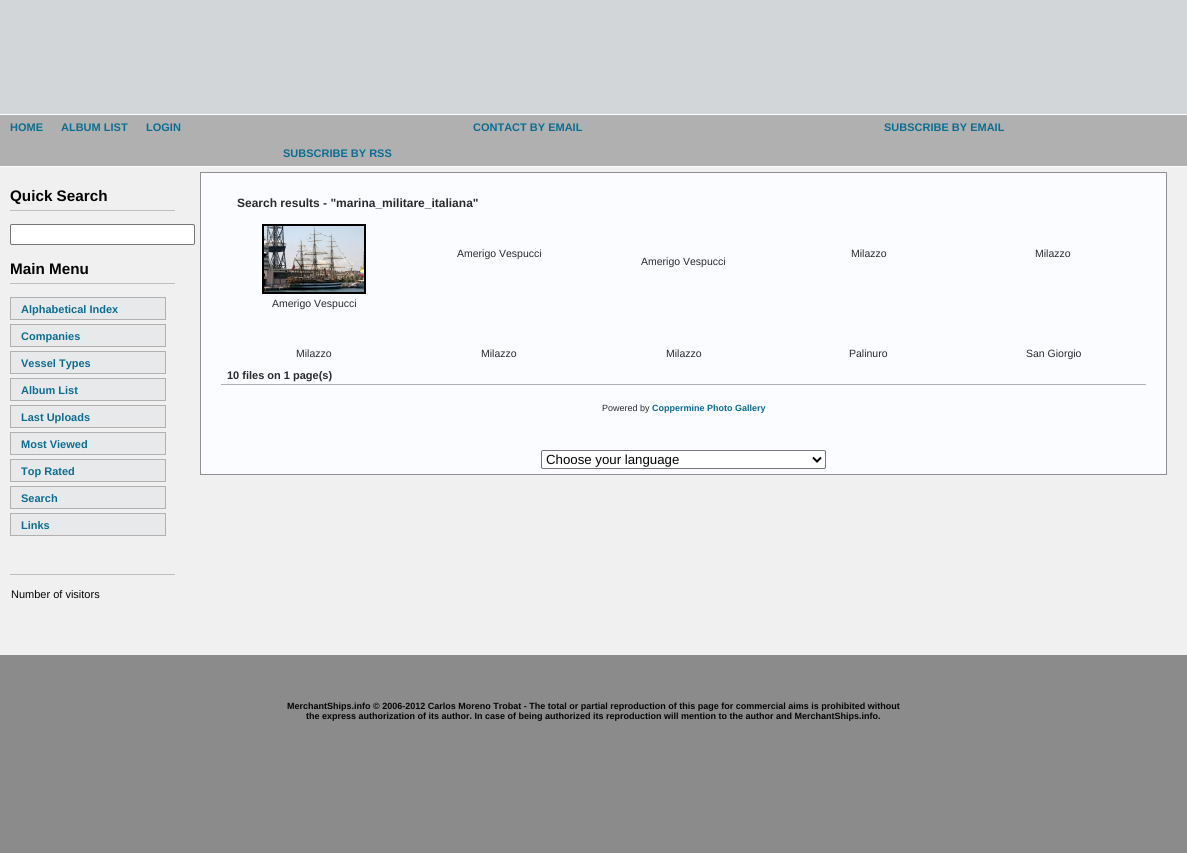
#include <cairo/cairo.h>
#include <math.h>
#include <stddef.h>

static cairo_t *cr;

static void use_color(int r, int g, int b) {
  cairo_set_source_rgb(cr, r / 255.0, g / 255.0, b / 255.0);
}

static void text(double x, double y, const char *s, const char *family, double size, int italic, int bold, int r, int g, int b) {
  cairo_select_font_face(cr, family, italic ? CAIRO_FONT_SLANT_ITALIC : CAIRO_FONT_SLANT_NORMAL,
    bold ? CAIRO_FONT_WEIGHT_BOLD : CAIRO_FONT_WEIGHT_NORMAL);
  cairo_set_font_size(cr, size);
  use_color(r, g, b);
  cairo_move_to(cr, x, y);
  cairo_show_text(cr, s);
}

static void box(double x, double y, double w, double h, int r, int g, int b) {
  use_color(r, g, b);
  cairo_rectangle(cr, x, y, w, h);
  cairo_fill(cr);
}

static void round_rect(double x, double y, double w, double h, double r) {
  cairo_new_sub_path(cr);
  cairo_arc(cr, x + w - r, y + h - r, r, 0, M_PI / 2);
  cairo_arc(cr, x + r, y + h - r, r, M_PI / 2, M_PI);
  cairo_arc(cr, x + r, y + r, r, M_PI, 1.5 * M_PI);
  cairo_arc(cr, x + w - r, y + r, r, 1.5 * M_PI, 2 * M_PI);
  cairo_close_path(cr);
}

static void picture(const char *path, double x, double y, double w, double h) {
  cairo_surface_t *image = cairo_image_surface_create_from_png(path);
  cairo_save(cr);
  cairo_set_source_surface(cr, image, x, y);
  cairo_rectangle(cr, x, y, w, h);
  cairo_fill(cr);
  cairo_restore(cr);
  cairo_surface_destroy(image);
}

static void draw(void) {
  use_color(139, 139, 139);
  cairo_paint(cr);
  box(0, 167, 1187, 488, 240, 240, 240);
  box(0, 0, 1187, 114, 210, 214, 217);
  box(0, 115, 1187, 51, 176, 176, 176);
  box(0, 114, 1187, 1, 255, 255, 255);
  box(0, 166, 1187, 1, 255, 255, 255);
  box(10, 210, 165, 1, 190, 191, 195);
  use_color(255, 255, 255);
  round_rect(10.5, 224.5, 184, 20, 1.5);
  cairo_fill_preserve(cr);
  use_color(118, 118, 118);
  cairo_set_line_width(cr, 1);
  cairo_stroke(cr);
  box(10, 283, 165, 1, 190, 191, 195);
  use_color(232, 233, 234);
  cairo_rectangle(cr, 10.5, 297.5, 155, 22);
  cairo_fill_preserve(cr);
  use_color(176, 176, 176);
  cairo_stroke(cr);
  use_color(232, 233, 234);
  cairo_rectangle(cr, 10.5, 324.5, 155, 22);
  cairo_fill_preserve(cr);
  use_color(176, 176, 176);
  cairo_stroke(cr);
  use_color(232, 233, 234);
  cairo_rectangle(cr, 10.5, 351.5, 155, 22);
  cairo_fill_preserve(cr);
  use_color(176, 176, 176);
  cairo_stroke(cr);
  use_color(232, 233, 234);
  cairo_rectangle(cr, 10.5, 378.5, 155, 22);
  cairo_fill_preserve(cr);
  use_color(176, 176, 176);
  cairo_stroke(cr);
  use_color(232, 233, 234);
  cairo_rectangle(cr, 10.5, 405.5, 155, 22);
  cairo_fill_preserve(cr);
  use_color(176, 176, 176);
  cairo_stroke(cr);
  use_color(232, 233, 234);
  cairo_rectangle(cr, 10.5, 432.5, 155, 22);
  cairo_fill_preserve(cr);
  use_color(176, 176, 176);
  cairo_stroke(cr);
  use_color(232, 233, 234);
  cairo_rectangle(cr, 10.5, 459.5, 155, 22);
  cairo_fill_preserve(cr);
  use_color(176, 176, 176);
  cairo_stroke(cr);
  use_color(232, 233, 234);
  cairo_rectangle(cr, 10.5, 486.5, 155, 22);
  cairo_fill_preserve(cr);
  use_color(176, 176, 176);
  cairo_stroke(cr);
  use_color(232, 233, 234);
  cairo_rectangle(cr, 10.5, 513.5, 155, 22);
  cairo_fill_preserve(cr);
  use_color(176, 176, 176);
  cairo_stroke(cr);
  box(10, 574, 165, 1, 190, 191, 195);
  use_color(250, 252, 255);
  cairo_rectangle(cr, 200.5, 172.5, 966, 302);
  cairo_fill_preserve(cr);
  use_color(144, 144, 144);
  cairo_stroke(cr);
  box(221, 384, 925, 1, 176, 176, 176);
  cairo_rectangle(cr, 263, 225, 102, 68);
  use_color(0, 0, 0);
  cairo_set_line_width(cr, 2);
  cairo_stroke(cr);
  picture("img_01.png", 264, 226, 100, 66);
  use_color(255, 255, 255);
  round_rect(541.5, 450.5, 284, 18, 1.5);
  cairo_fill_preserve(cr);
  use_color(118, 118, 118);
  cairo_set_line_width(cr, 1);
  cairo_stroke(cr);
  cairo_new_path(cr);
  cairo_move_to(cr, 813, 457.5);
  cairo_line_to(cr, 817, 461.5);
  cairo_line_to(cr, 821, 457.5);
  use_color(0, 0, 0);
  cairo_set_line_width(cr, 2);
  cairo_stroke(cr);
  text(10, 131, "HOME", "Liberation Sans", 11, 0, 1, 11, 109, 144);
  text(61, 131, "ALBUM LIST", "Liberation Sans", 11, 0, 1, 11, 109, 144);
  text(146, 131, "LOGIN", "Liberation Sans", 11, 0, 1, 11, 109, 144);
  text(473, 131, "CONTACT BY EMAIL", "Liberation Sans", 11, 0, 1, 11, 109, 144);
  text(884, 131, "SUBSCRIBE BY EMAIL", "Liberation Sans", 11, 0, 1, 11, 109, 144);
  text(283, 157, "SUBSCRIBE BY RSS", "Liberation Sans", 11, 0, 1, 11, 109, 144);
  text(10, 201, "Quick Search", "Liberation Sans", 15.25, 0, 1, 3, 3, 3);
  text(10, 274, "Main Menu", "Liberation Sans", 15.25, 0, 1, 3, 3, 3);
  text(21, 313, "Alphabetical Index", "Liberation Sans", 11, 0, 1, 11, 109, 144);
  text(21, 340, "Companies", "Liberation Sans", 11, 0, 1, 11, 109, 144);
  text(21, 367, "Vessel Types", "Liberation Sans", 11, 0, 1, 11, 109, 144);
  text(21, 394, "Album List", "Liberation Sans", 11, 0, 1, 11, 109, 144);
  text(21, 421, "Last Uploads", "Liberation Sans", 11, 0, 1, 11, 109, 144);
  text(21, 448, "Most Viewed", "Liberation Sans", 11, 0, 1, 11, 109, 144);
  text(21, 475, "Top Rated", "Liberation Sans", 11, 0, 1, 11, 109, 144);
  text(21, 502, "Search", "Liberation Sans", 11, 0, 1, 11, 109, 144);
  text(21, 529, "Links", "Liberation Sans", 11, 0, 1, 11, 109, 144);
  text(11, 598, "Number of visitors", "Liberation Sans", 11, 0, 0, 3, 3, 3);
  text(237, 207, "Search results - \"marina_militare_italiana\"", "Liberation Sans", 12, 0, 1, 42, 42, 42);
  text(457, 257, "Amerigo Vespucci", "Liberation Sans", 10.5, 0, 0, 42, 42, 42);
  text(851, 257, "Milazzo", "Liberation Sans", 10.5, 0, 0, 42, 42, 42);
  text(1035, 257, "Milazzo", "Liberation Sans", 10.5, 0, 0, 42, 42, 42);
  text(641, 265, "Amerigo Vespucci", "Liberation Sans", 10.5, 0, 0, 42, 42, 42);
  text(272, 307, "Amerigo Vespucci", "Liberation Sans", 10.5, 0, 0, 42, 42, 42);
  text(296, 357, "Milazzo", "Liberation Sans", 10.5, 0, 0, 42, 42, 42);
  text(481, 357, "Milazzo", "Liberation Sans", 10.5, 0, 0, 42, 42, 42);
  text(666, 357, "Milazzo", "Liberation Sans", 10.5, 0, 0, 42, 42, 42);
  text(849, 357, "Palinuro", "Liberation Sans", 10.5, 0, 0, 42, 42, 42);
  text(1026, 357, "San Giorgio", "Liberation Sans", 10.5, 0, 0, 42, 42, 42);
  text(227, 379, "10 files on 1 page(s)", "Liberation Sans", 11, 0, 1, 42, 42, 42);
  text(602, 411, "Powered by", "Liberation Sans", 9, 0, 0, 42, 42, 42);
  text(652, 411, "Coppermine Photo Gallery", "Liberation Sans", 9, 0, 1, 11, 109, 144);
  text(546, 464, "Choose your language", "Liberation Sans", 13.25, 0, 0, 3, 3, 3);
  text(287, 709, "MerchantShips.info © 2006-2012 Carlos Moreno Trobat - The total or partial reproduction of this page for commercial aims is prohibited without", "Liberation Sans", 9, 0, 1, 3, 3, 3);
  text(306, 719, "the express authorization of its author. In case of being authorized its reproduction will mention to the author and MerchantShips.info.", "Liberation Sans", 9, 0, 1, 3, 3, 3);
}

int main(void) {
  cairo_surface_t *surface = cairo_image_surface_create(CAIRO_FORMAT_RGB24, 1187, 853);
  cr = cairo_create(surface);
  cairo_font_options_t *options = cairo_font_options_create();
  cairo_font_options_set_hint_metrics(options, CAIRO_HINT_METRICS_OFF);
  cairo_font_options_set_hint_style(options, CAIRO_HINT_STYLE_NONE);
  cairo_set_font_options(cr, options);
  cairo_set_miter_limit(cr, 4);
  draw();
  cairo_surface_write_to_png(surface, "out.png");
  cairo_font_options_destroy(options);
  cairo_destroy(cr);
  cairo_surface_destroy(surface);
  return 0;
}
